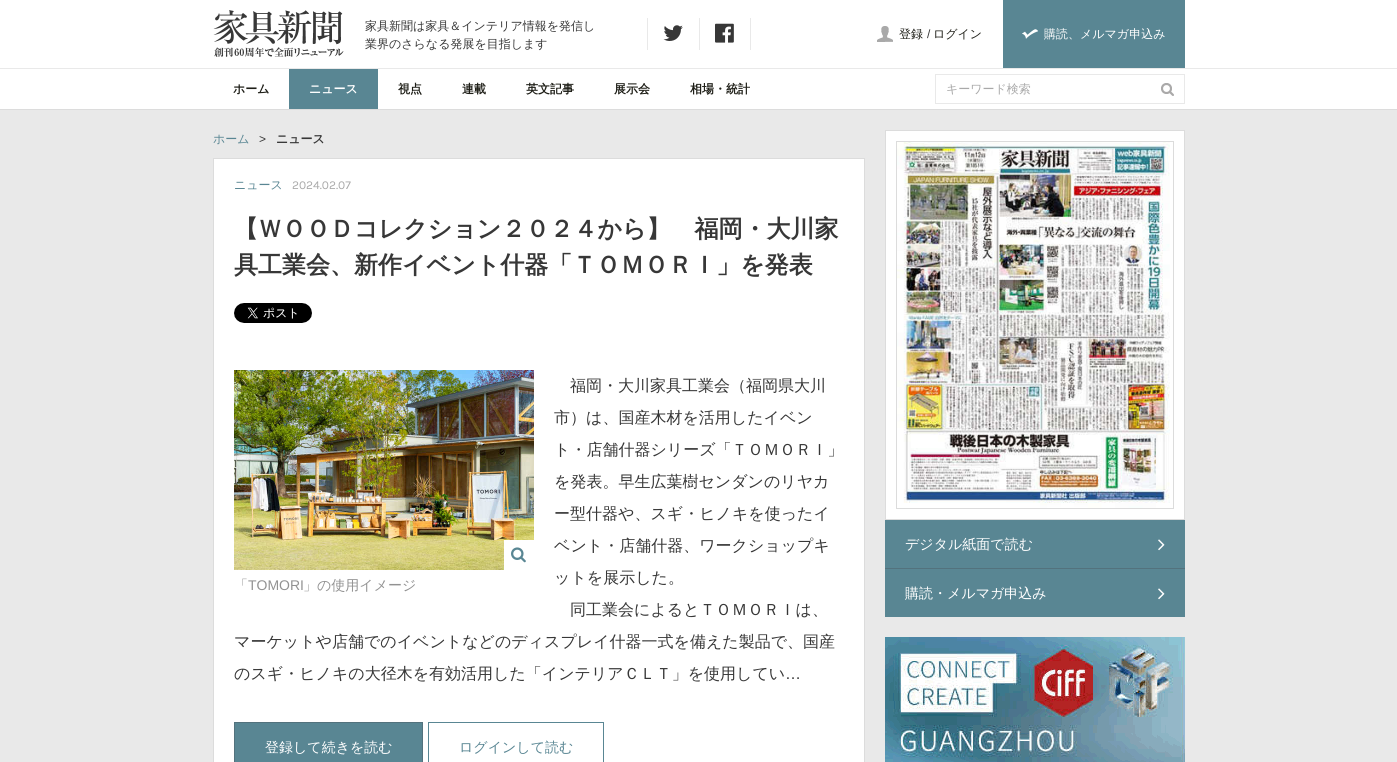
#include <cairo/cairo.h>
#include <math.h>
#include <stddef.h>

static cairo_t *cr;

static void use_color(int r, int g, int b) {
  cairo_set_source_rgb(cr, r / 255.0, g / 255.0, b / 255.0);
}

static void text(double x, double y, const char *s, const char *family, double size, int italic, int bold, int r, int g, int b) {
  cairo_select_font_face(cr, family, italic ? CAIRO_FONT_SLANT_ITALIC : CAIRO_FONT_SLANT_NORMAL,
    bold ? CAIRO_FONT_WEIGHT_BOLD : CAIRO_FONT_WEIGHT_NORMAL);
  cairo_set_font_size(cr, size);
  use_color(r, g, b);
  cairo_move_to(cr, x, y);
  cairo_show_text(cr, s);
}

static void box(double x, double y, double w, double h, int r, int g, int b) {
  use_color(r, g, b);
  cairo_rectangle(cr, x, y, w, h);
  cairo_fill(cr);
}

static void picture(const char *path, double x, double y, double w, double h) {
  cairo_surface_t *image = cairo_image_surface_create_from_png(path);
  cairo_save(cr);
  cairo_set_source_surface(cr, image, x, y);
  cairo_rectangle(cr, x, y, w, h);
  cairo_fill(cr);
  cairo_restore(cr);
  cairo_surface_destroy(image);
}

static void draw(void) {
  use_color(255, 255, 255);
  cairo_paint(cr);
  box(0, 68, 1397, 1, 233, 233, 233);
  picture("img_01.png", 213, 10, 131, 47);
  box(750, 18, 1, 32, 233, 233, 233);
  box(647, 18, 1, 32, 233, 233, 233);
  picture("img_02.png", 663, 25, 20, 16);
  box(699, 18, 1, 32, 233, 233, 233);
  picture("img_03.png", 715, 23, 19, 20);
  picture("img_04.png", 877, 26, 16, 16);
  box(1003, 0, 182, 68, 89, 134, 147);
  picture("img_05.png", 1022, 29, 16, 10);
  box(0, 109, 1397, 1, 220, 220, 220);
  box(289, 69, 89, 40, 89, 134, 147);
  box(935, 74, 250, 1, 233, 233, 233);
  box(935, 103, 216, 1, 233, 233, 233);
  box(935, 74, 1, 30, 233, 233, 233);
  picture("img_06.png", 1161, 83, 13, 13);
  box(1184, 74, 1, 30, 233, 233, 233);
  box(1151, 103, 34, 1, 233, 233, 233);
  box(0, 110, 1397, 652, 233, 233, 233);
  use_color(255, 255, 255);
  cairo_rectangle(cr, 213.5, 158.5, 651, 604);
  cairo_fill_preserve(cr);
  use_color(220, 220, 220);
  cairo_set_line_width(cr, 1);
  cairo_stroke(cr);
  picture("img_07.png", 234, 303, 78, 20);
  picture("img_08.png", 234, 370, 300, 200);
  box(504, 540, 30, 30, 255, 255, 255);
  picture("img_09.png", 511, 547, 15, 16);
  use_color(89, 134, 147);
  cairo_rectangle(cr, 234.5, 722.5, 188, 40);
  cairo_fill_preserve(cr);
  use_color(83, 114, 125);
  cairo_stroke(cr);
  cairo_rectangle(cr, 428.5, 722.5, 175, 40);
  use_color(89, 134, 147);
  cairo_stroke(cr);
  use_color(255, 255, 255);
  cairo_rectangle(cr, 885.5, 130.5, 299, 389);
  cairo_fill_preserve(cr);
  use_color(220, 220, 220);
  cairo_stroke(cr);
  cairo_rectangle(cr, 896.5, 141.5, 277, 367);
  cairo_stroke(cr);
  picture("img_10.png", 897, 142, 273, 366);
  box(885, 568, 300, 1, 83, 114, 125);
  box(885, 520, 300, 48, 89, 134, 147);
  picture("img_11.png", 1158, 539, 7, 12);
  box(885, 569, 300, 48, 89, 134, 147);
  picture("img_11.png", 1158, 588, 7, 12);
  picture("img_12.png", 885, 637, 300, 125);
  text(365, 30, "家具新聞は家具＆インテリア情報を発信し", "WenQuanYi Zen Hei Medium", 12, 0, 0, 55, 55, 55);
  text(365, 48, "業界のさらなる発展を目指します", "WenQuanYi Zen Hei Medium", 12, 0, 0, 55, 55, 55);
  text(899, 38, "登録", "WenQuanYi Zen Hei Medium", 12, 0, 0, 30, 30, 23);
  text(927, 38, "/", "Liberation Sans", 12, 0, 0, 55, 55, 55);
  text(933, 38, "ログイン", "WenQuanYi Zen Hei Medium", 12, 0, 0, 30, 30, 23);
  text(1044, 38, "購読、メルマガ申込み", "WenQuanYi Zen Hei Medium", 12, 0, 0, 255, 255, 255);
  text(233, 93, "ホーム", "WenQuanYi Zen Hei", 12, 0, 1, 30, 30, 23);
  text(309, 93, "ニュース", "WenQuanYi Zen Hei", 12, 0, 1, 255, 255, 255);
  text(398, 93, "視点", "WenQuanYi Zen Hei", 12, 0, 1, 30, 30, 23);
  text(462, 93, "連載", "WenQuanYi Zen Hei", 12, 0, 1, 30, 30, 23);
  text(526, 93, "英文記事", "WenQuanYi Zen Hei", 12, 0, 1, 30, 30, 23);
  text(614, 93, "展示会", "WenQuanYi Zen Hei", 12, 0, 1, 30, 30, 23);
  text(690, 93, "相場・統計", "WenQuanYi Zen Hei", 12, 0, 1, 30, 30, 23);
  text(946, 93, "キーワード検索", "WenQuanYi Zen Hei Medium", 12, 0, 0, 169, 169, 169);
  text(213, 143, "ホーム", "WenQuanYi Zen Hei Medium", 12, 0, 0, 89, 134, 147);
  text(259, 143, ">", "Liberation Sans", 12, 0, 0, 55, 55, 55);
  text(276, 143, "ニュース", "WenQuanYi Zen Hei", 12, 0, 1, 55, 55, 55);
  text(234, 189, "ニュース", "WenQuanYi Zen Hei Medium", 12, 0, 0, 89, 134, 147);
  text(292, 189, "2024.02.07", "Karla", 12, 0, 0, 169, 169, 169);
  text(234, 237, "【ＷＯＯＤコレクション２０２４から】　福岡・大川家", "WenQuanYi Zen Hei", 24, 0, 1, 55, 55, 55);
  text(234, 273, "具工業会、新作イベント什器「ＴＯＭＯＲＩ」を発表", "WenQuanYi Zen Hei", 24, 0, 1, 55, 55, 55);
  text(570, 391, "福岡・大川家具工業会（福岡県大川", "WenQuanYi Zen Hei Medium", 16, 0, 0, 55, 55, 55);
  text(554, 423, "市）は、国産木材を活用したイベン", "WenQuanYi Zen Hei Medium", 16, 0, 0, 55, 55, 55);
  text(554, 455, "ト・店舗什器シリーズ「ＴＯＭＯＲＩ」", "WenQuanYi Zen Hei Medium", 16, 0, 0, 55, 55, 55);
  text(554, 487, "を発表。早生広葉樹センダンのリヤカ", "WenQuanYi Zen Hei Medium", 16, 0, 0, 55, 55, 55);
  text(554, 519, "ー型什器や、スギ・ヒノキを使ったイ", "WenQuanYi Zen Hei Medium", 16, 0, 0, 55, 55, 55);
  text(554, 551, "ベント・店舗什器、ワークショップキ", "WenQuanYi Zen Hei Medium", 16, 0, 0, 55, 55, 55);
  text(554, 583, "ットを展示した。", "WenQuanYi Zen Hei Medium", 16, 0, 0, 55, 55, 55);
  text(570, 615, "同工業会によるとＴＯＭＯＲＩは、", "WenQuanYi Zen Hei Medium", 16, 0, 0, 55, 55, 55);
  text(234, 647, "マーケットや店舗でのイベントなどのディスプレイ什器一式を備えた製品で、国産", "WenQuanYi Zen Hei Medium", 16, 0, 0, 55, 55, 55);
  text(234, 679, "のスギ・ヒノキの大径木を有効活用した「インテリアＣＬＴ」を使用してい", "WenQuanYi Zen Hei Medium", 16, 0, 0, 55, 55, 55);
  text(785, 679, "…", "Liberation Sans", 16, 0, 0, 55, 55, 55);
  text(234, 590, "「", "WenQuanYi Zen Hei Medium", 14, 0, 0, 146, 146, 146);
  text(248, 590, "TOMORI", "Liberation Sans", 14, 0, 0, 146, 146, 146);
  text(303, 590, "」の使用イメージ", "WenQuanYi Zen Hei Medium", 14, 0, 0, 146, 146, 146);
  text(265, 752, "登録して続きを読む", "WenQuanYi Zen Hei Medium", 14, 0, 0, 255, 255, 255);
  text(459, 752, "ログインして読む", "WenQuanYi Zen Hei Medium", 14, 0, 0, 89, 134, 147);
  text(905, 549, "デジタル紙面で読む", "WenQuanYi Zen Hei Medium", 14, 0, 0, 255, 255, 255);
  text(905, 598, "購読・メルマガ申込み", "WenQuanYi Zen Hei Medium", 14, 0, 0, 255, 255, 255);
}

int main(void) {
  cairo_surface_t *surface = cairo_image_surface_create(CAIRO_FORMAT_RGB24, 1397, 762);
  cr = cairo_create(surface);
  cairo_font_options_t *options = cairo_font_options_create();
  cairo_font_options_set_hint_metrics(options, CAIRO_HINT_METRICS_OFF);
  cairo_font_options_set_hint_style(options, CAIRO_HINT_STYLE_NONE);
  cairo_set_font_options(cr, options);
  cairo_set_miter_limit(cr, 4);
  draw();
  cairo_surface_write_to_png(surface, "out.png");
  cairo_font_options_destroy(options);
  cairo_destroy(cr);
  cairo_surface_destroy(surface);
  return 0;
}
